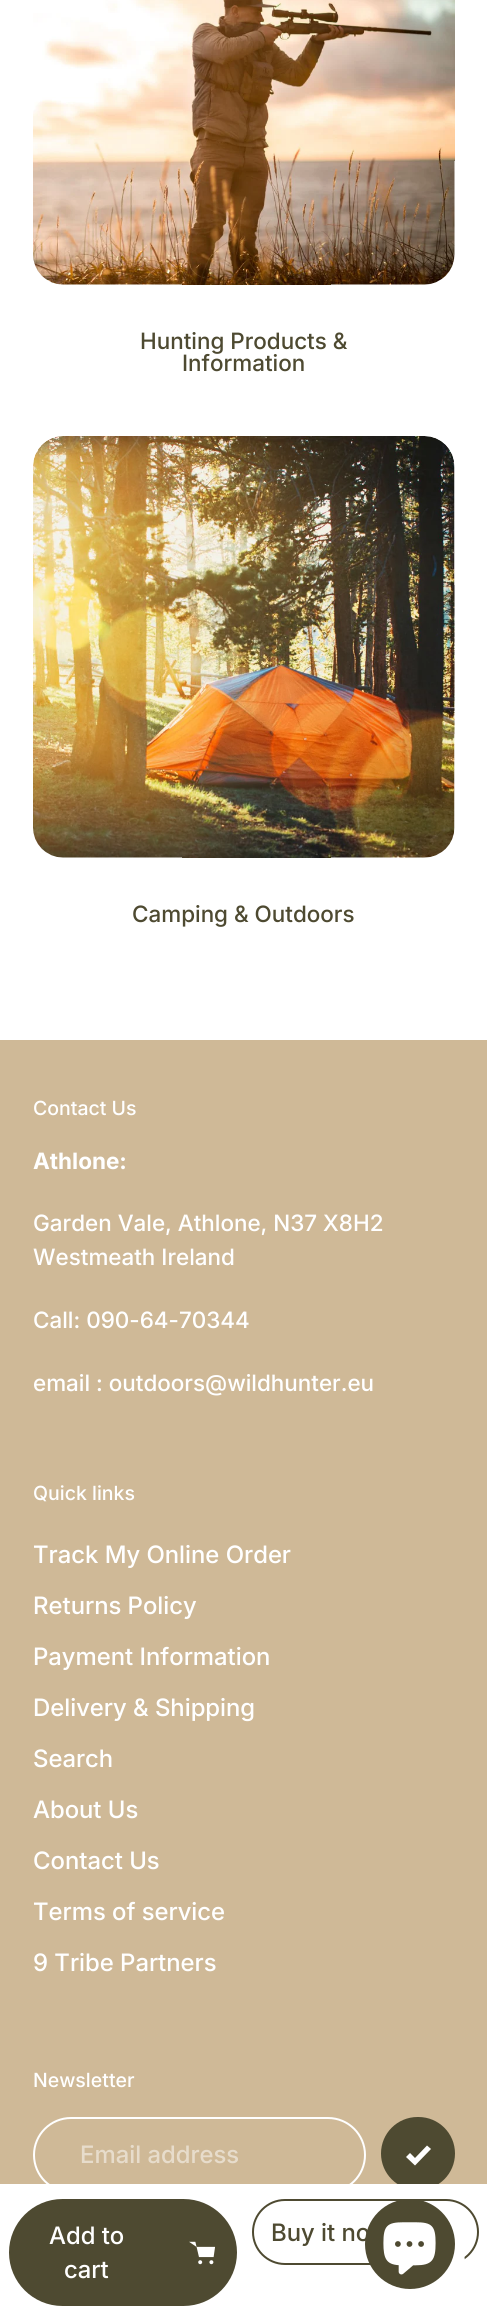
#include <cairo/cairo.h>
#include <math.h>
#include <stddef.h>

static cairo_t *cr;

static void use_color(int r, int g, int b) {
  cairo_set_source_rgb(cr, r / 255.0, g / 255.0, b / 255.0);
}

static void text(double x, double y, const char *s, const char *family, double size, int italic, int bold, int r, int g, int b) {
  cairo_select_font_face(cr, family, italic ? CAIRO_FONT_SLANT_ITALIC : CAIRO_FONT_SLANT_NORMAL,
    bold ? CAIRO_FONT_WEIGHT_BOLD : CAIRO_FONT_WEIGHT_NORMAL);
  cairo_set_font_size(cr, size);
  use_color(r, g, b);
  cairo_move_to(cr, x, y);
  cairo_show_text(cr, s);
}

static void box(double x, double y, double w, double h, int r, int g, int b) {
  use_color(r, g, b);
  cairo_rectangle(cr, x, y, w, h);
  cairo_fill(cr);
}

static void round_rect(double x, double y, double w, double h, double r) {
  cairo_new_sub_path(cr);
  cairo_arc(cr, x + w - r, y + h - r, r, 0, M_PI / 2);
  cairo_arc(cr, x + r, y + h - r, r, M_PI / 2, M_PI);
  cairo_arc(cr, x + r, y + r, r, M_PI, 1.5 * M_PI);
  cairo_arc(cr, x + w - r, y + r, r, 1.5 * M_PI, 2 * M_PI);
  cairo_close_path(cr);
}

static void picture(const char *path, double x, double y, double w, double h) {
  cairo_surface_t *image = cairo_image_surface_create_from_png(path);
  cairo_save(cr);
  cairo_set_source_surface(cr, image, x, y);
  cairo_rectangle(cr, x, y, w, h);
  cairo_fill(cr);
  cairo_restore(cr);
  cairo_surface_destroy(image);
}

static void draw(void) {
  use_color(255, 255, 255);
  cairo_paint(cr);
  picture("img_01.png", 33, 0, 422, 285);
  picture("img_02.png", 33, 436, 422, 422);
  box(0, 1040, 487, 1144, 207, 185, 151);
  use_color(78, 74, 49);
  round_rect(381, 2117, 74, 73, 36.5);
  cairo_fill(cr);
  box(397, 2184, 42, 6, 255, 255, 255);
  use_color(78, 74, 49);
  round_rect(9, 2199, 228, 107, 53.5);
  cairo_fill(cr);
  picture("img_03.png", 189, 2241, 26, 24);
  round_rect(253, 2200, 225, 64, 32);
  cairo_stroke(cr);
  round_rect(34, 2118, 331, 74, 37);
  use_color(255, 255, 255);
  cairo_stroke(cr);
  cairo_new_path(cr);
  cairo_move_to(cr, 415, 2165.5);
  cairo_line_to(cr, 406, 2157);
  cairo_line_to(cr, 410, 2153);
  cairo_line_to(cr, 415, 2158);
  cairo_line_to(cr, 427, 2145.5);
  cairo_line_to(cr, 431, 2149);
  cairo_close_path(cr);
  cairo_fill(cr);
  cairo_arc(cr, 430, 2263, 35, 0, 2 * M_PI);
  cairo_fill(cr);
  use_color(78, 74, 49);
  cairo_arc(cr, 410, 2244, 45, 0, 2 * M_PI);
  cairo_fill(cr);
  picture("img_04.png", 383, 2222, 53, 53);
  text(140, 349, "Hunting Products &", "Inter Medium", 22.5, 0, 0, 78, 74, 49);
  text(182, 371, "Information", "Inter Medium", 22.5, 0, 0, 78, 74, 49);
  text(132, 922, "Camping & Outdoors", "Inter Medium", 22.5, 0, 0, 78, 74, 49);
  text(49, 2244, "Add to", "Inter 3 Medium", 24, 0, 0, 255, 255, 255);
  text(64, 2278, "cart", "Inter 3 Medium", 24, 0, 0, 255, 255, 255);
  text(271, 2241, "Buy it no", "Inter 3 Medium", 24, 0, 0, 78, 74, 49);
  text(33, 1115, "Contact Us", "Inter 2 Medium", 19.5, 0, 0, 255, 255, 255);
  text(33, 1169, "Athlone:", "Inter", 22.5, 0, 1, 255, 255, 255);
  text(33, 1231, "Garden Vale, Athlone, N37 X8H2", "Inter Medium", 22.5, 0, 0, 255, 255, 255);
  text(33, 1265, "Westmeath Ireland", "Inter Medium", 22.5, 0, 0, 255, 255, 255);
  text(33, 1328, "Call: 090-64-70344", "Inter Medium", 22.5, 0, 0, 255, 255, 255);
  text(33, 1391, "email : outdoors@wildhunter.eu", "Inter Medium", 22.5, 0, 0, 255, 255, 255);
  text(33, 1500, "Quick links", "Inter 2 Medium", 19.5, 0, 0, 255, 255, 255);
  text(33, 1563, "Track My Online Order", "Inter 3 Medium", 24, 0, 0, 255, 255, 255);
  text(33, 1614, "Returns Policy", "Inter 3 Medium", 24, 0, 0, 255, 255, 255);
  text(33, 1665, "Payment Information", "Inter 3 Medium", 24, 0, 0, 255, 255, 255);
  text(33, 1716, "Delivery & Shipping", "Inter 3 Medium", 24, 0, 0, 255, 255, 255);
  text(33, 1767, "Search", "Inter 3 Medium", 24, 0, 0, 255, 255, 255);
  text(33, 1818, "About Us", "Inter 3 Medium", 24, 0, 0, 255, 255, 255);
  text(33, 1869, "Contact Us", "Inter 3 Medium", 24, 0, 0, 255, 255, 255);
  text(33, 1920, "Terms of service", "Inter 3 Medium", 24, 0, 0, 255, 255, 255);
  text(33, 1971, "9 Tribe Partners", "Inter 3 Medium", 24, 0, 0, 255, 255, 255);
  text(33, 2087, "Newsletter", "Inter 2 Medium", 19.5, 0, 0, 255, 255, 255);
  text(80, 2163, "Email address", "Inter 3 Medium", 24, 0, 0, 231, 220, 203);
}

int main(void) {
  cairo_surface_t *surface = cairo_image_surface_create(CAIRO_FORMAT_RGB24, 487, 2320);
  cr = cairo_create(surface);
  cairo_font_options_t *options = cairo_font_options_create();
  cairo_font_options_set_hint_metrics(options, CAIRO_HINT_METRICS_OFF);
  cairo_font_options_set_hint_style(options, CAIRO_HINT_STYLE_NONE);
  cairo_set_font_options(cr, options);
  cairo_set_miter_limit(cr, 4);
  draw();
  cairo_surface_write_to_png(surface, "out.png");
  cairo_font_options_destroy(options);
  cairo_destroy(cr);
  cairo_surface_destroy(surface);
  return 0;
}
